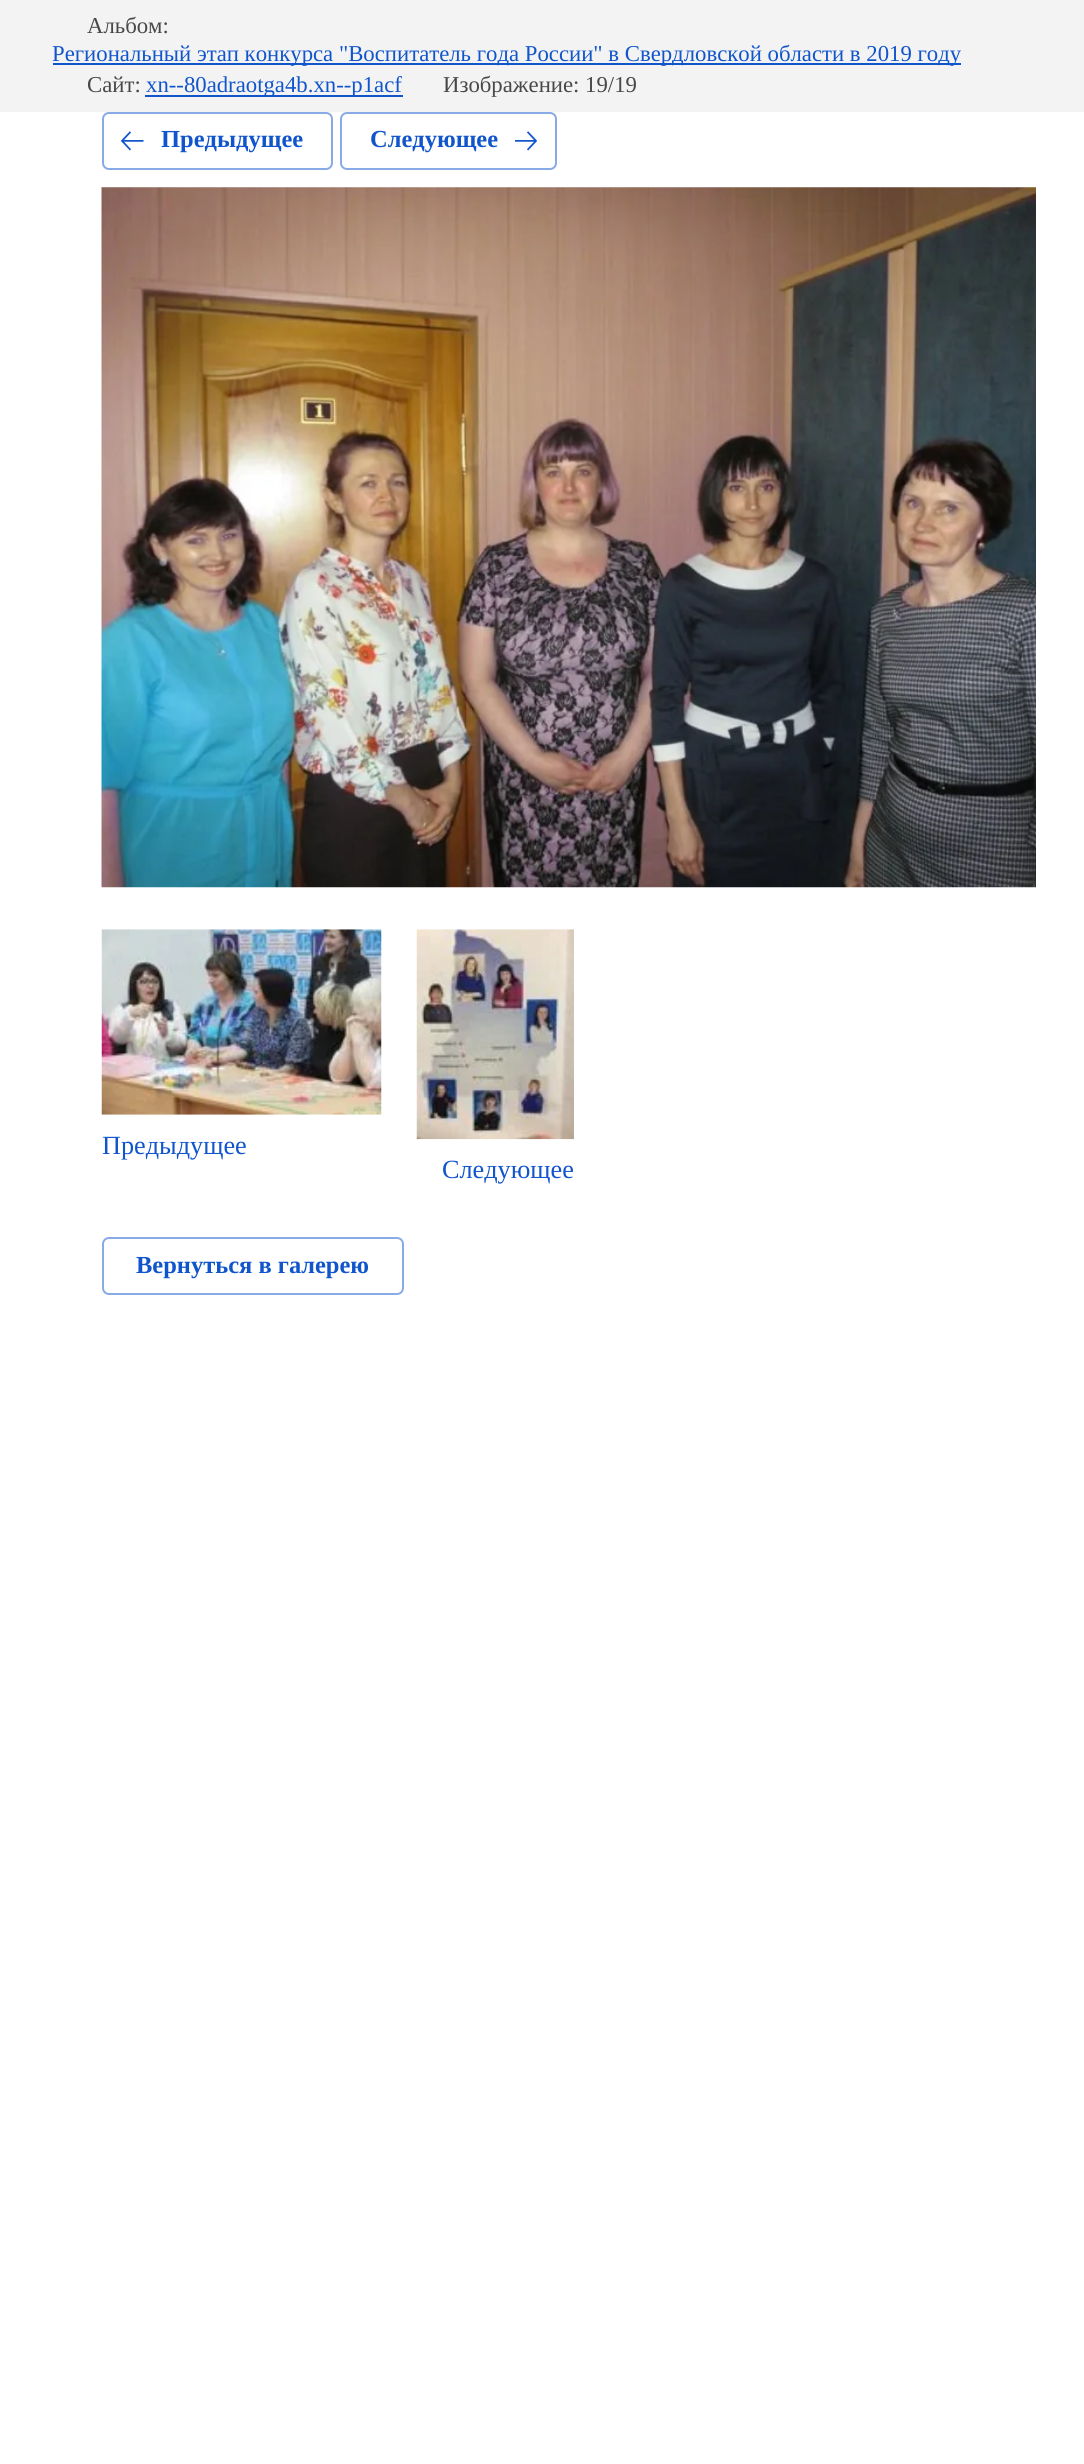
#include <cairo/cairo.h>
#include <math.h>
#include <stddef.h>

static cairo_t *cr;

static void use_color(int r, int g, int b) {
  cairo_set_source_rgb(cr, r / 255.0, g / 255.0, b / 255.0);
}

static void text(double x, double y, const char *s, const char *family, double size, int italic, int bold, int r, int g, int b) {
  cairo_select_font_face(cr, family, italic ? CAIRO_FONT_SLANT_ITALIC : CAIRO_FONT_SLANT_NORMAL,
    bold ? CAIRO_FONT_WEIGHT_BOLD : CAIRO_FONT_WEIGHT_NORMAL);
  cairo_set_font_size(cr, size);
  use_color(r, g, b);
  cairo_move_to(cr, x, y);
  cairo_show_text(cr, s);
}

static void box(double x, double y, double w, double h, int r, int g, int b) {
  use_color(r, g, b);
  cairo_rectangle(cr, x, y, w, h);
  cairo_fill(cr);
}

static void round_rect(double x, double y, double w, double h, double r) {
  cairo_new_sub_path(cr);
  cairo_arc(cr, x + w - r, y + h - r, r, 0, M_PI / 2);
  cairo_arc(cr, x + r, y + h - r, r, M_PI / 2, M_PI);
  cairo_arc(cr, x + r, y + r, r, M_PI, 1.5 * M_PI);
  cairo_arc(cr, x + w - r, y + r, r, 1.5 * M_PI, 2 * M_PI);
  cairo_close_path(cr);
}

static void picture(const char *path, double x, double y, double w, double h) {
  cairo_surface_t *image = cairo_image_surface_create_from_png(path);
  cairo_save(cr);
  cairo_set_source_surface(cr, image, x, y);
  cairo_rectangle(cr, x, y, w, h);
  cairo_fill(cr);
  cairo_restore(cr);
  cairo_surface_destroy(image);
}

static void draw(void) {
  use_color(255, 255, 255);
  cairo_paint(cr);
  box(0, 0, 1084, 112, 243, 243, 243);
  box(53, 63, 908, 2, 17, 85, 204);
  box(145, 95, 258, 2, 17, 85, 204);
  round_rect(103, 113, 229, 56, 6);
  use_color(136, 170, 230);
  cairo_stroke(cr);
  picture("img_01.png", 121, 131, 23, 20);
  round_rect(341, 113, 215, 56, 6);
  cairo_stroke(cr);
  picture("img_02.png", 515, 131, 22, 20);
  picture("img_03.png", 101, 187, 935, 701);
  picture("img_04.png", 101, 929, 281, 186);
  picture("img_05.png", 416, 929, 158, 211);
  round_rect(103, 1238, 300, 56, 6);
  cairo_stroke(cr);
  text(87, 33, "Альбом:", "Liberation Serif", 22.75, 0, 0, 72, 72, 72);
  text(52, 61, "Региональный этап конкурса \"Воспитатель года России\" в Свердловской области в 2019 году", "Liberation Serif", 22.75, 0, 0, 17, 85, 204);
  text(87, 92, "Сайт:", "Liberation Serif", 22.75, 0, 0, 72, 72, 72);
  text(146, 92, "xn--80adraotga4b.xn--p1acf", "Liberation Serif", 22.75, 0, 0, 17, 85, 204);
  text(443, 92, "Изображение: 19/19", "Liberation Serif", 22.75, 0, 0, 72, 72, 72);
  text(161, 147, "Предыдущее", "Liberation Serif", 24.5, 0, 1, 17, 85, 204);
  text(370, 147, "Следующее", "Liberation Serif", 24.5, 0, 1, 17, 85, 204);
  text(102, 1154, "Предыдущее", "Liberation Serif", 26.25, 0, 0, 17, 85, 204);
  text(442, 1178, "Следующее", "Liberation Serif", 26.25, 0, 0, 17, 85, 204);
  text(136, 1273, "Вернуться в галерею", "Liberation Serif", 24.5, 0, 1, 17, 85, 204);
}

int main(void) {
  cairo_surface_t *surface = cairo_image_surface_create(CAIRO_FORMAT_RGB24, 1084, 2464);
  cr = cairo_create(surface);
  cairo_font_options_t *options = cairo_font_options_create();
  cairo_font_options_set_hint_metrics(options, CAIRO_HINT_METRICS_OFF);
  cairo_font_options_set_hint_style(options, CAIRO_HINT_STYLE_NONE);
  cairo_set_font_options(cr, options);
  cairo_set_miter_limit(cr, 4);
  draw();
  cairo_surface_write_to_png(surface, "out.png");
  cairo_font_options_destroy(options);
  cairo_destroy(cr);
  cairo_surface_destroy(surface);
  return 0;
}
